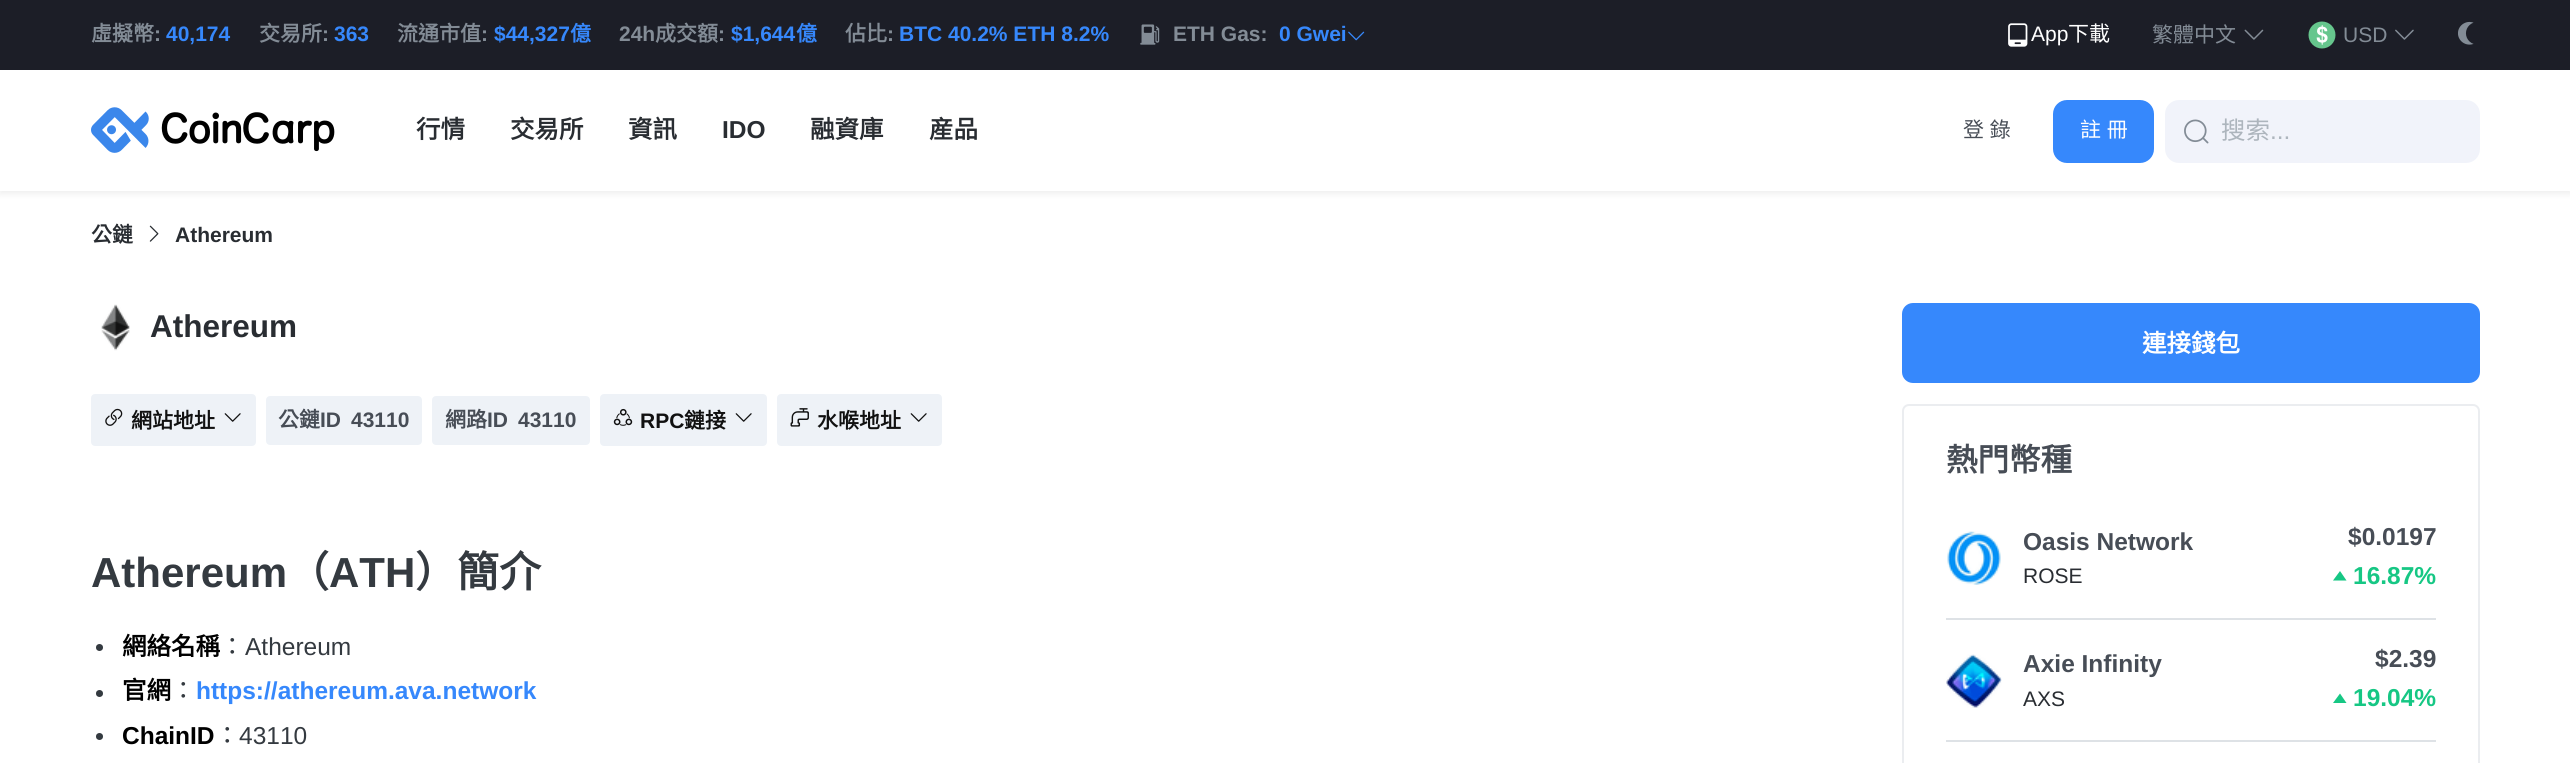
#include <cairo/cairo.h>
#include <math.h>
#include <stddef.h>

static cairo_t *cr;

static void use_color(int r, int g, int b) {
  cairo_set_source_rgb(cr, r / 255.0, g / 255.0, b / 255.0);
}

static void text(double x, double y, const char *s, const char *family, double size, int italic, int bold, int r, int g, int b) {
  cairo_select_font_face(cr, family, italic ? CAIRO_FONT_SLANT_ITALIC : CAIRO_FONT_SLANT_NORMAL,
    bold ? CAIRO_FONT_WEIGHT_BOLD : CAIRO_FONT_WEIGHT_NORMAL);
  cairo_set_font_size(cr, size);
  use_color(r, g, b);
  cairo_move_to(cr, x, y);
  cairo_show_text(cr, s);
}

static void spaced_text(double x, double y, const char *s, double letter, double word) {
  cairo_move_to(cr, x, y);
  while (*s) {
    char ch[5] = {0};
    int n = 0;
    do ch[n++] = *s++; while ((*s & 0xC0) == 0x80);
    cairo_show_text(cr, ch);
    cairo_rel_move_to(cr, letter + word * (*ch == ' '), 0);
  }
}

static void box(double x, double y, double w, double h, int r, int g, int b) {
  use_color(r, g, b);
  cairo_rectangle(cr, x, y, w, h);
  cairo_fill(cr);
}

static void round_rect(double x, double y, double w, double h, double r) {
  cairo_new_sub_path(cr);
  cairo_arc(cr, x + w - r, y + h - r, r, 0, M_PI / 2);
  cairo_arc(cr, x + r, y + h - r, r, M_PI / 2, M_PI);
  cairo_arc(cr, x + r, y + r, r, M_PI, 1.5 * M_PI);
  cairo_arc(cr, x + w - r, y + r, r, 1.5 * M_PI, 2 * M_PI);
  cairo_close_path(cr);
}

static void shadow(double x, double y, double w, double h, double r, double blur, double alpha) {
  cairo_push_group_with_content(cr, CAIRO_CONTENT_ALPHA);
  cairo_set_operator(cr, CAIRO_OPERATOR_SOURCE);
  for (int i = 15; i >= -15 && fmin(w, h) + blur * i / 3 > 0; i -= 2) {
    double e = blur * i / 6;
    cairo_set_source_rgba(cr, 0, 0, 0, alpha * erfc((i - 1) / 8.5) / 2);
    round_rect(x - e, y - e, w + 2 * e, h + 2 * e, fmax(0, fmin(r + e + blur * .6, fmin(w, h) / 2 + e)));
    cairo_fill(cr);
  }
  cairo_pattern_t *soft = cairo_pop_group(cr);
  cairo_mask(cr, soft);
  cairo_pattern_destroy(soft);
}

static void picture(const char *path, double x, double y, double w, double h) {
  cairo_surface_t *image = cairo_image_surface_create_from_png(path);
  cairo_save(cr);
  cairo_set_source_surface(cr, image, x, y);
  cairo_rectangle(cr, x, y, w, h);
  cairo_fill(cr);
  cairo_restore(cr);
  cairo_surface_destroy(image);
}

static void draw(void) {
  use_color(255, 255, 255);
  cairo_paint(cr);
  box(0, 0, 2570, 70, 28, 30, 39);
  picture("img_01.png", 1140, 24, 20, 21);
  picture("img_02.png", 1348, 31, 17, 10);
  picture("img_03.png", 2008, 23, 20, 24);
  picture("img_04.png", 2244, 29, 20, 11);
  picture("img_05.png", 2308, 21, 28, 28);
  picture("img_06.png", 2395, 29, 19, 11);
  picture("img_07.png", 2458, 21, 16, 24);
  use_color(0, 0, 0);
  shadow(0, 74, 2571, 120, 0, 3.5, 0.07);
  box(0, 70, 2570, 121, 255, 255, 255);
  picture("img_08.png", 91, 107, 244, 46);
  use_color(54, 136, 252);
  round_rect(2054, 101, 99, 61, 13);
  cairo_fill_preserve(cr);
  cairo_stroke(cr);
  use_color(241, 243, 250);
  round_rect(2165, 100, 315, 63, 14);
  cairo_fill(cr);
  picture("img_09.png", 2184, 119, 25, 25);
  picture("img_10.png", 149, 225, 10, 17);
  picture("img_11.png", 101, 304, 29, 47);
  use_color(238, 242, 247);
  round_rect(92, 395, 163, 50, 3);
  cairo_fill_preserve(cr);
  cairo_stroke(cr);
  picture("img_12.png", 105, 408, 18, 18);
  picture("img_13.png", 224, 413, 17, 9);
  round_rect(267, 397, 154, 47, 3);
  cairo_fill_preserve(cr);
  cairo_stroke(cr);
  round_rect(433, 397, 156, 47, 3);
  cairo_fill_preserve(cr);
  cairo_stroke(cr);
  round_rect(601, 395, 165, 50, 3);
  cairo_fill_preserve(cr);
  cairo_stroke(cr);
  picture("img_14.png", 613, 408, 20, 18);
  picture("img_13.png", 735, 413, 17, 9);
  round_rect(778, 395, 163, 50, 3);
  cairo_fill_preserve(cr);
  cairo_stroke(cr);
  picture("img_15.png", 790, 408, 19, 19);
  picture("img_13.png", 910, 413, 17, 9);
  use_color(52, 58, 64);
  cairo_arc(cr, 99.5, 647.5, 3.5, 0, 2 * M_PI);
  cairo_fill(cr);
  cairo_arc(cr, 99.5, 693.5, 3.5, 0, 2 * M_PI);
  cairo_fill(cr);
  cairo_arc(cr, 99.5, 736.5, 3.5, 0, 2 * M_PI);
  cairo_fill(cr);
  use_color(54, 136, 252);
  round_rect(1903, 304, 576, 78, 10);
  cairo_fill_preserve(cr);
  cairo_stroke(cr);
  round_rect(1903, 405, 576, 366, 6);
  use_color(235, 237, 240);
  cairo_stroke(cr);
  box(1946, 618, 490, 2, 222, 226, 230);
  picture("img_16.png", 1947, 531, 54, 54);
  use_color(22, 199, 132);
  cairo_new_path(cr);
  cairo_move_to(cr, 2340, 571);
  cairo_line_to(cr, 2346.5, 580.5);
  cairo_line_to(cr, 2333, 580.5);
  cairo_close_path(cr);
  cairo_fill(cr);
  box(1946, 740, 490, 2, 222, 226, 230);
  picture("img_17.png", 1946, 654, 56, 54);
  use_color(22, 199, 132);
  cairo_new_path(cr);
  cairo_move_to(cr, 2340, 693.5);
  cairo_line_to(cr, 2346.5, 703);
  cairo_line_to(cr, 2333, 703);
  cairo_close_path(cr);
  cairo_fill(cr);
  text(91, 41, "虛擬幣", "Noto Sans CJK TC", 21, 0, 1, 131, 140, 150);
  text(154, 41, ":", "Liberation Sans", 21, 0, 1, 131, 140, 150);
  text(166, 41, "40,174", "Liberation Sans", 21, 0, 1, 54, 136, 252);
  text(259, 41, "交易所", "Noto Sans CJK TC", 21, 0, 1, 131, 140, 150);
  text(322, 41, ":", "Liberation Sans", 21, 0, 1, 131, 140, 150);
  text(334, 41, "363", "Liberation Sans", 21, 0, 1, 54, 136, 252);
  text(397, 41, "流通市值", "Noto Sans CJK TC", 21, 0, 1, 131, 140, 150);
  text(481, 41, ":", "Liberation Sans", 21, 0, 1, 131, 140, 150);
  text(494, 41, "$44,327", "Liberation Sans", 21, 0, 1, 54, 136, 252);
  text(570, 41, "億", "Noto Sans CJK TC", 21, 0, 1, 54, 136, 252);
  text(619, 41, "24h", "Liberation Sans", 21, 0, 1, 131, 140, 150);
  text(655, 41, "成交額", "Noto Sans CJK TC", 21, 0, 1, 131, 140, 150);
  text(718, 41, ":", "Liberation Sans", 21, 0, 1, 131, 140, 150);
  text(731, 41, "$1,644", "Liberation Sans", 21, 0, 1, 54, 136, 252);
  text(796, 41, "億", "Noto Sans CJK TC", 21, 0, 1, 54, 136, 252);
  text(845, 41, "佔比", "Noto Sans CJK TC", 21, 0, 1, 131, 140, 150);
  text(887, 41, ":", "Liberation Sans", 21, 0, 1, 131, 140, 150);
  text(899, 41, "BTC 40.2% ETH 8.2%", "Liberation Sans", 21, 0, 1, 54, 136, 252);
  text(1173, 41, "ETH Gas:", "Liberation Sans", 21, 0, 1, 131, 140, 150);
  text(1279, 41, "0 Gwei", "Liberation Sans", 21, 0, 1, 54, 136, 252);
  text(2031, 41, "App", "Liberation Sans", 21, 0, 0, 255, 255, 255);
  text(2068, 41, "下載", "Noto Sans CJK TC", 21, 0, 0, 255, 255, 255);
  text(2152, 42, "繁體中文", "Noto Sans CJK TC", 21, 0, 0, 131, 140, 150);
  text(2343, 42, "USD", "Liberation Sans", 21, 0, 0, 131, 140, 150);
  text(416, 138, "行情", "Noto Sans CJK TC", 24.5, 0, 1, 41, 45, 50);
  text(510, 138, "交易所", "Noto Sans CJK TC", 24.5, 0, 1, 41, 45, 50);
  text(628, 138, "資訊", "Noto Sans CJK TC", 24.5, 0, 1, 41, 45, 50);
  text(722, 138, "IDO", "Liberation Sans", 24.5, 0, 1, 41, 45, 50);
  text(810, 138, "融資庫", "Noto Sans CJK TC", 24.5, 0, 1, 41, 45, 50);
  text(929, 138, "産品", "Noto Sans CJK TC", 24.5, 0, 1, 41, 45, 50);
  cairo_select_font_face(cr, "Noto Sans CJK TC", CAIRO_FONT_SLANT_NORMAL, CAIRO_FONT_WEIGHT_NORMAL);
  cairo_set_font_size(cr, 21);
  use_color(71, 77, 86);
  spaced_text(1963, 137, "登 錄", 0, 1);
  use_color(255, 255, 255);
  spaced_text(2080, 137, "註 冊", 0, 1);
  text(2221, 139, "搜索", "Noto Sans CJK TC", 24.5, 0, 0, 173, 181, 189);
  text(2270, 139, "...", "Liberation Sans", 24.5, 0, 0, 173, 181, 189);
  text(91, 242, "公鏈", "Noto Sans CJK TC", 21, 0, 1, 41, 45, 50);
  text(175, 242, "Athereum", "Liberation Sans", 21, 0, 1, 41, 45, 50);
  text(150, 337, "Athereum", "Liberation Sans", 31.5, 0, 1, 41, 45, 50);
  text(131, 428, "網站地址", "Noto Sans CJK TC", 21, 0, 1, 17, 17, 17);
  text(278, 427, "公鏈", "Noto Sans CJK TC", 21, 0, 1, 71, 77, 86);
  text(320, 427, "ID", "Liberation Sans", 21, 0, 1, 71, 77, 86);
  text(351, 427, "43110", "Liberation Sans", 21, 0, 1, 71, 77, 86);
  text(445, 427, "網路", "Noto Sans CJK TC", 21, 0, 1, 71, 77, 86);
  text(487, 427, "ID", "Liberation Sans", 21, 0, 1, 71, 77, 86);
  text(518, 427, "43110", "Liberation Sans", 21, 0, 1, 71, 77, 86);
  text(640, 428, "RPC", "Liberation Sans", 21, 0, 1, 17, 17, 17);
  text(684, 428, "鏈接", "Noto Sans CJK TC", 21, 0, 1, 17, 17, 17);
  text(817, 428, "水喉地址", "Noto Sans CJK TC", 21, 0, 1, 17, 17, 17);
  text(91, 587, "Athereum", "Liberation Sans", 42, 0, 1, 52, 58, 64);
  text(287, 587, "（", "Noto Sans CJK TC", 42, 0, 1, 52, 58, 64);
  text(329, 587, "ATH", "Liberation Sans", 42, 0, 1, 52, 58, 64);
  text(415, 587, "）簡介", "Noto Sans CJK TC", 42, 0, 1, 52, 58, 64);
  text(122, 655, "網絡名稱", "Noto Sans CJK TC", 24.5, 0, 1, 0, 0, 0);
  text(220, 655, "：", "Noto Sans CJK TC", 24.5, 0, 0, 52, 58, 64);
  text(245, 655, "Athereum", "Liberation Sans", 24.5, 0, 0, 52, 58, 64);
  text(122, 699, "官網", "Noto Sans CJK TC", 24.5, 0, 1, 0, 0, 0);
  text(171, 699, "：", "Noto Sans CJK TC", 24.5, 0, 0, 52, 58, 64);
  text(196, 699, "https://athereum.ava.network", "Liberation Sans", 24.5, 0, 1, 54, 136, 252);
  text(122, 744, "ChainID", "Liberation Sans", 24.5, 0, 1, 0, 0, 0);
  text(215, 744, "：", "Noto Sans CJK TC", 24.5, 0, 0, 52, 58, 64);
  text(239, 744, "43110", "Liberation Sans", 24.5, 0, 0, 52, 58, 64);
  text(2142, 352, "連接錢包", "Noto Sans CJK TC", 24.5, 0, 1, 255, 255, 255);
  text(1946, 471, "熱門幣種", "Noto Sans CJK TC", 31.5, 0, 1, 71, 77, 86);
  text(2023, 550, "Oasis Network", "Liberation Sans", 24.5, 0, 1, 71, 77, 86);
  text(2023, 583, "ROSE", "Liberation Sans", 21, 0, 0, 41, 45, 50);
  text(2348, 545, "$0.0197", "Liberation Sans", 24.5, 0, 1, 71, 77, 86);
  text(2353, 584, "16.87%", "Liberation Sans", 24.5, 0, 1, 22, 199, 132);
  text(2023, 672, "Axie Infinity", "Liberation Sans", 24.5, 0, 1, 71, 77, 86);
  text(2023, 706, "AXS", "Liberation Sans", 21, 0, 0, 41, 45, 50);
  text(2375, 667, "$2.39", "Liberation Sans", 24.5, 0, 1, 71, 77, 86);
  text(2353, 706, "19.04%", "Liberation Sans", 24.5, 0, 1, 22, 199, 132);
}

int main(void) {
  cairo_surface_t *surface = cairo_image_surface_create(CAIRO_FORMAT_RGB24, 2570, 763);
  cr = cairo_create(surface);
  cairo_font_options_t *options = cairo_font_options_create();
  cairo_font_options_set_hint_metrics(options, CAIRO_HINT_METRICS_OFF);
  cairo_font_options_set_hint_style(options, CAIRO_HINT_STYLE_NONE);
  cairo_set_font_options(cr, options);
  cairo_set_miter_limit(cr, 4);
  draw();
  cairo_surface_write_to_png(surface, "out.png");
  cairo_font_options_destroy(options);
  cairo_destroy(cr);
  cairo_surface_destroy(surface);
  return 0;
}
